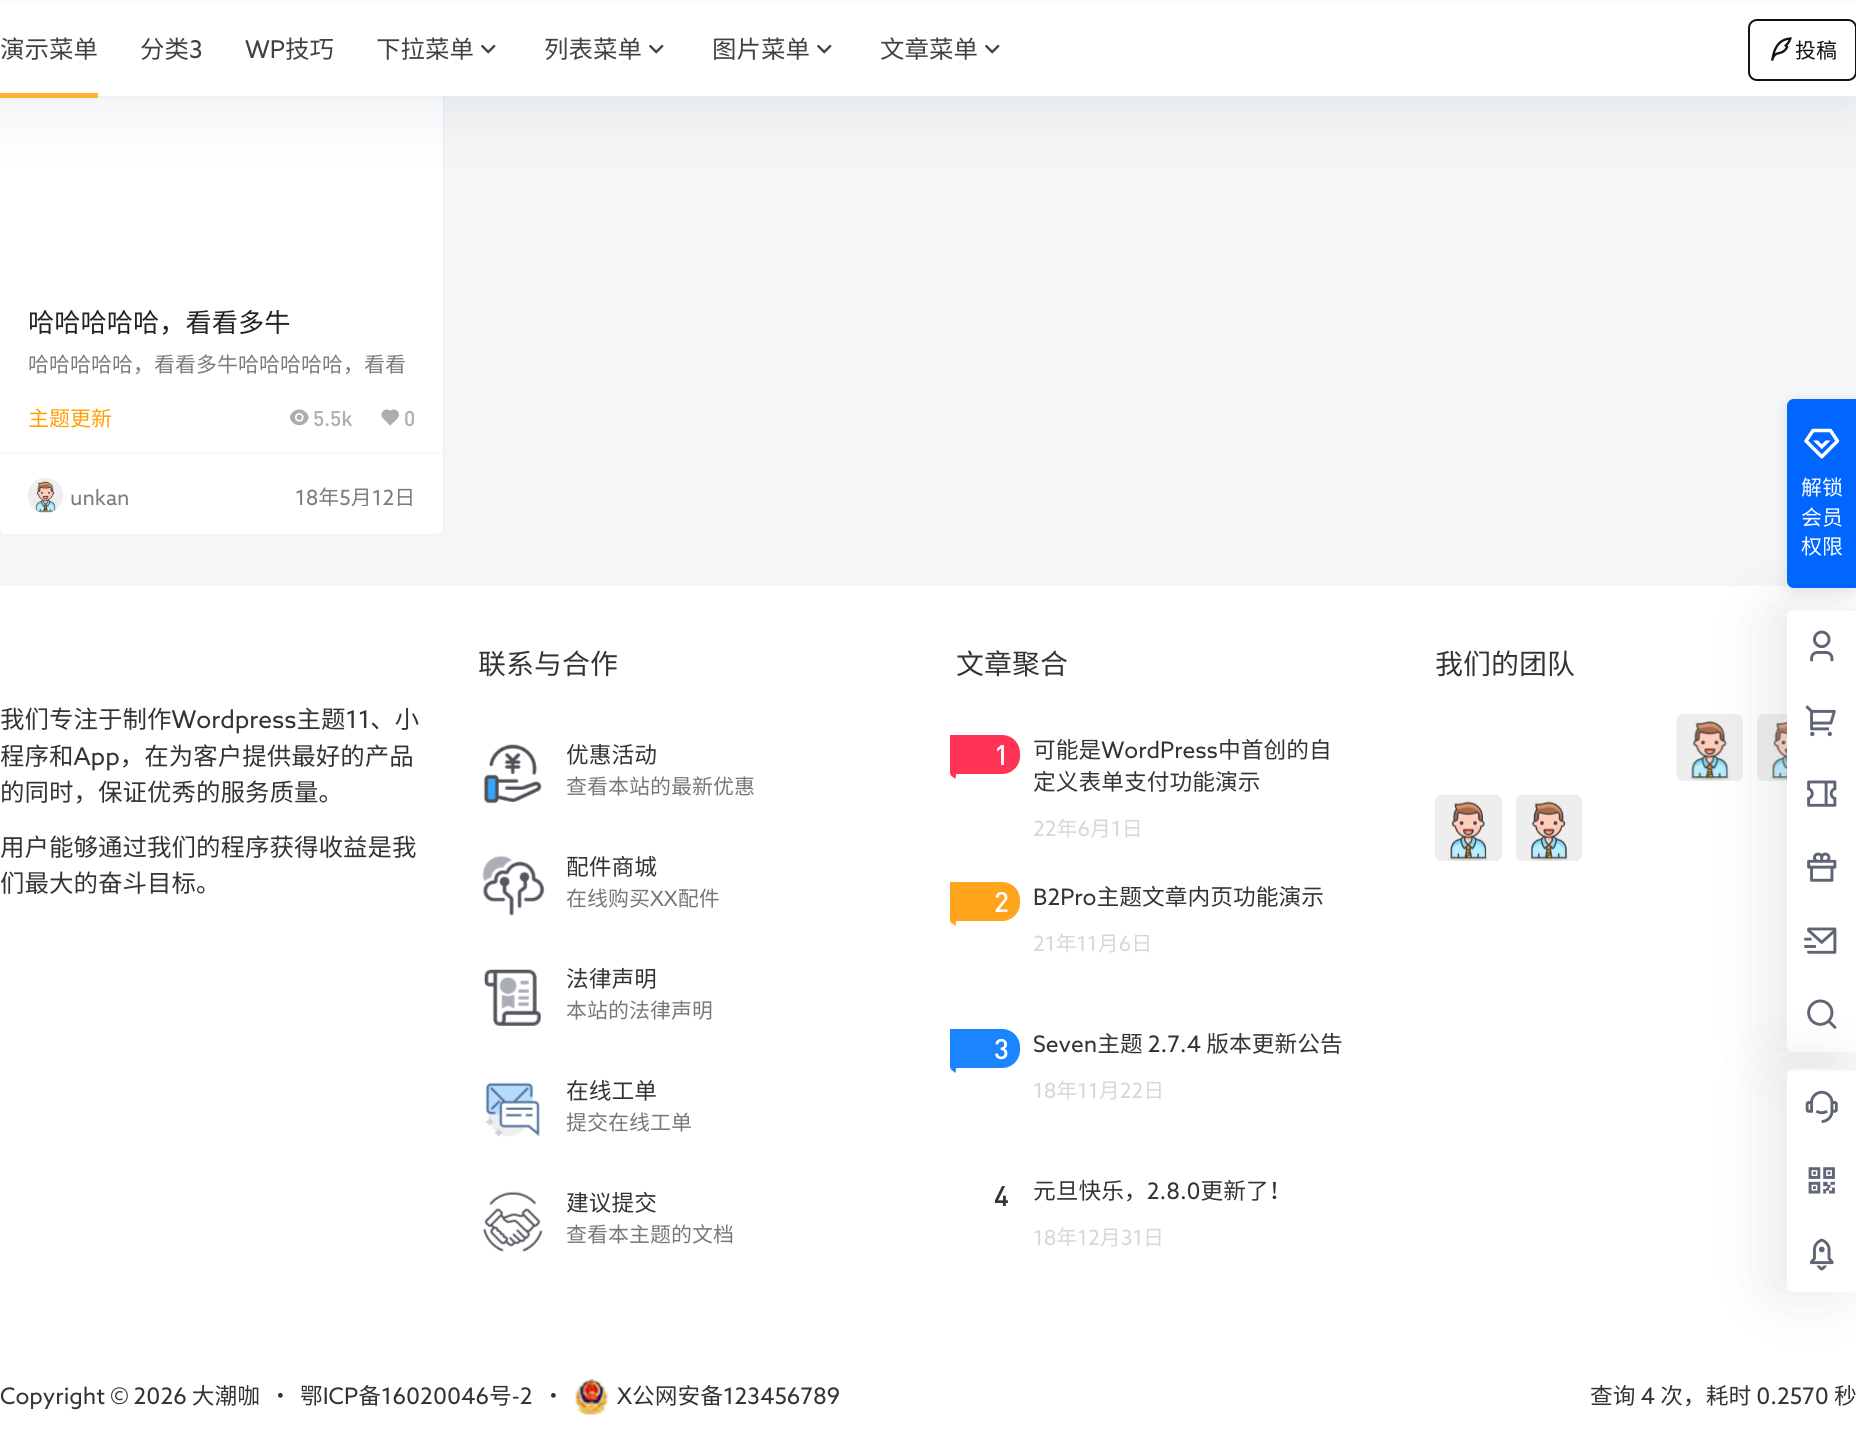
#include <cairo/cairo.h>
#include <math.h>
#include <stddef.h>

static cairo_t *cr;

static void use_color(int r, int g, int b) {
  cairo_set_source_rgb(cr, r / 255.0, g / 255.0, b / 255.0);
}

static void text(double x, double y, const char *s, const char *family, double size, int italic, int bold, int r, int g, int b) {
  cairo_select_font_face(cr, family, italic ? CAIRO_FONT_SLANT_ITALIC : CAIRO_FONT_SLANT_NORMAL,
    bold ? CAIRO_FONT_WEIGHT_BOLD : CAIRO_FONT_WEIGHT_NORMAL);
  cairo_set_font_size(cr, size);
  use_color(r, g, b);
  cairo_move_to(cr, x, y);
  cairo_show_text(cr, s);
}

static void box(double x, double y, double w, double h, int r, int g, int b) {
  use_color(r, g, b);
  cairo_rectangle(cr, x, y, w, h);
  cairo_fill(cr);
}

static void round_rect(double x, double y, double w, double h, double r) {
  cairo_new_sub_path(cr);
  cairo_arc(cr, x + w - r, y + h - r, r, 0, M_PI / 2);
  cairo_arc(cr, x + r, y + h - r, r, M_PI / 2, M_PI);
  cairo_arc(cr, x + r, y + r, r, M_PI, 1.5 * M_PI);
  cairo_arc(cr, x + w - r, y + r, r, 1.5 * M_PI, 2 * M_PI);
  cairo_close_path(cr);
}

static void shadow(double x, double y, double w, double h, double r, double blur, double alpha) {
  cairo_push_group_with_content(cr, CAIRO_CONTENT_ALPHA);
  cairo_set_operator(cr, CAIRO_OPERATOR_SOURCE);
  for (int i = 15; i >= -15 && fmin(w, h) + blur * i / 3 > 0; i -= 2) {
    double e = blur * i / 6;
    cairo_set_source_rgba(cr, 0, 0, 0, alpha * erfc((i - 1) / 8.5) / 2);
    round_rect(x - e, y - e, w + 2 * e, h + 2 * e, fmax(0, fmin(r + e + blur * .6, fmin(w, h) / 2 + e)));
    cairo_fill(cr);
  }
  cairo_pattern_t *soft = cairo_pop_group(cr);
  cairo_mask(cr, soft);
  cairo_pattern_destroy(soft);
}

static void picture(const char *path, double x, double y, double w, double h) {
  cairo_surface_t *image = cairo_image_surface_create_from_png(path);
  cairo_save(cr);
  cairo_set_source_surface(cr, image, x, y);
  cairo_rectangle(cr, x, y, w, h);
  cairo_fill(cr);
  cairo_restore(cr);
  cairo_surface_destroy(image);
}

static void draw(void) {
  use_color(245, 246, 247);
  cairo_paint(cr);
  use_color(98, 124, 153);
  shadow(0, 11, 443, 523, 7, 2, 0.1);
  use_color(255, 255, 255);
  round_rect(0, 11, 443, 523, 7);
  cairo_fill(cr);
  use_color(17, 58, 93);
  shadow(0, -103, 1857, 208, 0, 35, 0.1);
  box(0, 2, 1856, 94, 255, 255, 255);
  box(0, 0, 1856, 2, 252, 252, 252);
  cairo_set_source_rgba(cr, 1, 0.627, 0, 0.8);
  cairo_rectangle(cr, 0, 93, 98, 5);
  cairo_fill(cr);
  picture("img_01.png", 480, 44, 16, 10);
  picture("img_01.png", 648, 44, 16, 10);
  picture("img_01.png", 816, 44, 16, 10);
  picture("img_01.png", 984, 44, 16, 10);
  round_rect(1749, 20, 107, 60, 8);
  use_color(18, 18, 18);
  cairo_stroke(cr);
  picture("img_02.png", 1771, 37, 21, 24);
  picture("img_03.png", 289, 409, 20, 17);
  picture("img_04.png", 381, 409, 18, 17);
  box(0, 452, 443, 2, 245, 246, 247);
  use_color(238, 238, 238);
  cairo_arc(cr, 45.5, 495.5, 17.5, 0, 2 * M_PI);
  cairo_fill(cr);
  picture("img_05.png", 28, 478, 35, 35);
  box(0, 586, 1856, 863, 255, 255, 255);
  use_color(238, 238, 238);
  round_rect(1677, 714, 66, 67, 7);
  cairo_fill(cr);
  picture("img_21.png", 1676, 715, 54, 66);
  round_rect(1757, 714, 67, 67, 7);
  cairo_fill(cr);
  picture("img_22.png", 1770, 721, 17, 60);
  use_color(181, 181, 181);
  shadow(1773, 609, 70, 443, 7, 30.5, 0.32);
  use_color(255, 255, 255);
  cairo_new_path(cr);
  cairo_move_to(cr, 1794, 609);
  cairo_line_to(cr, 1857, 609);
  cairo_line_to(cr, 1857, 1052);
  cairo_line_to(cr, 1794, 1052);
  cairo_curve_to(cr, 1790, 1052, 1787, 1049, 1787, 1045);
  cairo_line_to(cr, 1787, 616);
  cairo_curve_to(cr, 1787, 612, 1790, 609, 1794, 609);
  cairo_close_path(cr);
  cairo_fill(cr);
  box(1790, 609, 66, 2, 245, 246, 247);
  use_color(0, 0, 0);
  shadow(1787, 403, 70, 189, 7, 7, 0.1);
  use_color(0, 102, 255);
  cairo_new_path(cr);
  cairo_move_to(cr, 1794, 399);
  cairo_line_to(cr, 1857, 399);
  cairo_line_to(cr, 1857, 588);
  cairo_line_to(cr, 1794, 588);
  cairo_curve_to(cr, 1790, 588, 1787, 585, 1787, 581);
  cairo_line_to(cr, 1787, 406);
  cairo_curve_to(cr, 1787, 402, 1790, 399, 1794, 399);
  cairo_close_path(cr);
  cairo_fill(cr);
  picture("img_06.png", 1804, 428, 36, 31);
  picture("img_07.png", 1810, 630, 24, 32);
  picture("img_08.png", 1805, 705, 31, 32);
  picture("img_09.png", 1807, 780, 30, 27);
  picture("img_10.png", 1807, 852, 30, 30);
  picture("img_11.png", 1804, 927, 33, 27);
  picture("img_12.png", 1807, 999, 30, 31);
  use_color(181, 181, 181);
  shadow(1773, 1069, 70, 223, 7, 30.5, 0.32);
  use_color(255, 255, 255);
  cairo_new_path(cr);
  cairo_move_to(cr, 1794, 1069);
  cairo_line_to(cr, 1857, 1069);
  cairo_line_to(cr, 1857, 1292);
  cairo_line_to(cr, 1794, 1292);
  cairo_curve_to(cr, 1790, 1292, 1787, 1289, 1787, 1285);
  cairo_line_to(cr, 1787, 1076);
  cairo_curve_to(cr, 1787, 1072, 1790, 1069, 1794, 1069);
  cairo_close_path(cr);
  cairo_fill(cr);
  box(1790, 1069, 66, 2, 245, 246, 247);
  picture("img_13.png", 1805, 1090, 33, 33);
  picture("img_14.png", 1808, 1167, 27, 27);
  picture("img_15.png", 1810, 1238, 24, 33);
  picture("img_16.png", 483, 744, 59, 60);
  picture("img_17.png", 482, 855, 63, 61);
  picture("img_18.png", 484, 969, 57, 57);
  picture("img_19.png", 485, 1082, 55, 55);
  picture("img_20.png", 482, 1191, 61, 61);
  use_color(255, 51, 85);
  cairo_new_path(cr);
  cairo_move_to(cr, 950, 735);
  cairo_line_to(cr, 1002, 735);
  cairo_curve_to(cr, 1012, 735, 1020, 743, 1020, 753);
  cairo_line_to(cr, 1020, 756);
  cairo_curve_to(cr, 1020, 766, 1012, 774, 1002, 774);
  cairo_line_to(cr, 950, 774);
  cairo_close_path(cr);
  cairo_fill(cr);
  cairo_new_path(cr);
  cairo_move_to(cr, 955.5, 779);
  cairo_line_to(cr, 950, 775);
  cairo_line_to(cr, 956.5, 771);
  cairo_close_path(cr);
  cairo_fill(cr);
  use_color(255, 164, 27);
  cairo_new_path(cr);
  cairo_move_to(cr, 950, 882);
  cairo_line_to(cr, 1002, 882);
  cairo_curve_to(cr, 1012, 882, 1020, 890, 1020, 900);
  cairo_line_to(cr, 1020, 903);
  cairo_curve_to(cr, 1020, 913, 1012, 921, 1002, 921);
  cairo_line_to(cr, 950, 921);
  cairo_close_path(cr);
  cairo_fill(cr);
  cairo_new_path(cr);
  cairo_move_to(cr, 955.5, 926);
  cairo_line_to(cr, 950, 922);
  cairo_line_to(cr, 956.5, 918);
  cairo_close_path(cr);
  cairo_fill(cr);
  use_color(26, 133, 255);
  cairo_new_path(cr);
  cairo_move_to(cr, 950, 1029);
  cairo_line_to(cr, 1002, 1029);
  cairo_curve_to(cr, 1012, 1029, 1020, 1037, 1020, 1047);
  cairo_line_to(cr, 1020, 1050);
  cairo_curve_to(cr, 1020, 1060, 1012, 1068, 1002, 1068);
  cairo_line_to(cr, 950, 1068);
  cairo_close_path(cr);
  cairo_fill(cr);
  cairo_new_path(cr);
  cairo_move_to(cr, 955.5, 1073);
  cairo_line_to(cr, 950, 1069);
  cairo_line_to(cr, 956.5, 1065);
  cairo_close_path(cr);
  cairo_fill(cr);
  use_color(238, 238, 238);
  round_rect(1435, 795, 67, 66, 7);
  cairo_fill(cr);
  picture("img_23.png", 1435, 794, 65, 67);
  round_rect(1516, 795, 66, 66, 7);
  cairo_fill(cr);
  picture("img_24.png", 1515, 794, 66, 67);
  picture("img_25.png", 575, 1379, 33, 36);
  text(0, 58, "演示菜单", "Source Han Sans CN", 24.5, 0, 0, 65, 65, 65);
  text(140, 58, "分类3", "Source Han Sans CN", 24.5, 0, 0, 65, 65, 65);
  text(245, 58, "WP技巧", "Source Han Sans CN", 24.5, 0, 0, 65, 65, 65);
  text(376, 58, "下拉菜单", "Source Han Sans CN", 24.5, 0, 0, 65, 65, 65);
  text(544, 58, "列表菜单", "Source Han Sans CN", 24.5, 0, 0, 65, 65, 65);
  text(712, 58, "图片菜单", "Source Han Sans CN", 24.5, 0, 0, 65, 65, 65);
  text(880, 58, "文章菜单", "Source Han Sans CN", 24.5, 0, 0, 65, 65, 65);
  text(1795, 58, "投稿", "Source Han Sans CN", 21, 0, 0, 18, 18, 18);
  text(28, 332, "哈哈哈哈哈，看看多牛", "Source Han Sans CN", 26.25, 0, 0, 34, 34, 34);
  text(28, 372, "哈哈哈哈哈，看看多牛哈哈哈哈哈，看看", "Source Han Sans CN", 21, 0, 0, 121, 124, 128);
  text(28, 426, "主题更新", "Source Han Sans CN", 21, 0, 0, 255, 160, 0);
  text(313, 426, "5.5k", "DIN Medium", 21, 0, 0, 170, 174, 179);
  text(404, 426, "0", "DIN Medium", 21, 0, 0, 170, 174, 179);
  text(70, 505, "unkan", "Source Han Sans CN", 21, 0, 0, 121, 124, 128);
  cairo_save(cr);
  cairo_rectangle(cr, 296, 481, 119, 25);
  cairo_clip(cr);
  text(295, 505, "18年5月12日", "Source Han Sans CN", 21, 0, 0, 121, 124, 128);
  cairo_restore(cr);
  text(1801, 495, "解锁", "Source Han Sans CN", 21, 0, 0, 255, 255, 255);
  text(1801, 525, "会员", "Source Han Sans CN", 21, 0, 0, 255, 255, 255);
  text(1801, 554, "权限", "Source Han Sans CN", 21, 0, 0, 255, 255, 255);
  text(478, 674, "联系与合作", "Source Han Sans CN", 28, 0, 0, 51, 51, 51);
  text(566, 763, "优惠活动", "Source Han Sans CN", 22.75, 0, 0, 51, 51, 51);
  text(566, 794, "查看本站的最新优惠", "Source Han Sans CN", 21, 0, 0, 119, 119, 119);
  text(566, 875, "配件商城", "Source Han Sans CN", 22.75, 0, 0, 51, 51, 51);
  text(566, 906, "在线购买XX配件", "Source Han Sans CN", 21, 0, 0, 119, 119, 119);
  text(566, 987, "法律声明", "Source Han Sans CN", 22.75, 0, 0, 51, 51, 51);
  text(566, 1018, "本站的法律声明", "Source Han Sans CN", 21, 0, 0, 119, 119, 119);
  text(566, 1099, "在线工单", "Source Han Sans CN", 22.75, 0, 0, 51, 51, 51);
  text(566, 1130, "提交在线工单", "Source Han Sans CN", 21, 0, 0, 119, 119, 119);
  text(566, 1211, "建议提交", "Source Han Sans CN", 22.75, 0, 0, 51, 51, 51);
  text(566, 1242, "查看本主题的文档", "Source Han Sans CN", 21, 0, 0, 119, 119, 119);
  text(956, 674, "文章聚合", "Source Han Sans CN", 28, 0, 0, 51, 51, 51);
  text(994, 765, "1", "DIN Medium", 28, 0, 0, 255, 255, 255);
  text(1033, 758, "可能是WordPress中首创的自", "Source Han Sans CN", 22.75, 0, 0, 51, 51, 51);
  text(1033, 790, "定义表单支付功能演示", "Source Han Sans CN", 22.75, 0, 0, 51, 51, 51);
  text(1033, 836, "22年6月1日", "Source Han Sans CN", 21, 0, 0, 215, 215, 215);
  text(994, 912, "2", "DIN Medium", 28, 0, 0, 255, 255, 255);
  text(1033, 905, "B2Pro主题文章内页功能演示", "Source Han Sans CN", 22.75, 0, 0, 51, 51, 51);
  text(1033, 951, "21年11月6日", "Source Han Sans CN", 21, 0, 0, 215, 215, 215);
  text(994, 1059, "3", "DIN Medium", 28, 0, 0, 255, 255, 255);
  text(1033, 1052, "Seven主题 2.7.4 版本更新公告", "Source Han Sans CN", 22.75, 0, 0, 51, 51, 51);
  text(1033, 1098, "18年11月22日", "Source Han Sans CN", 21, 0, 0, 215, 215, 215);
  text(994, 1206, "4", "DIN Medium", 28, 0, 0, 51, 51, 51);
  text(1033, 1199, "元旦快乐，2.8.0更新了！", "Source Han Sans CN", 22.75, 0, 0, 51, 51, 51);
  text(1033, 1245, "18年12月31日", "Source Han Sans CN", 21, 0, 0, 215, 215, 215);
  text(1435, 674, "我们的团队", "Source Han Sans CN", 28, 0, 0, 51, 51, 51);
  text(0, 728, "我们专注于制作Wordpress主题11、小", "Source Han Sans CN", 24.5, 0, 0, 51, 51, 51);
  text(0, 765, "程序和App，在为客户提供最好的产品", "Source Han Sans CN", 24.5, 0, 0, 51, 51, 51);
  text(0, 801, "的同时，保证优秀的服务质量。", "Source Han Sans CN", 24.5, 0, 0, 51, 51, 51);
  text(0, 856, "用户能够通过我们的程序获得收益是我", "Source Han Sans CN", 24.5, 0, 0, 51, 51, 51);
  text(0, 892, "们最大的奋斗目标。", "Source Han Sans CN", 24.5, 0, 0, 51, 51, 51);
  text(0, 1404, "Copyright © 2026 大潮咖", "Source Han Sans CN", 22.75, 0, 0, 51, 51, 51);
  text(269, 1404, "・", "Source Han Sans CN", 22.75, 0, 0, 51, 51, 51);
  text(300, 1404, "鄂ICP备16020046号-2", "Source Han Sans CN", 22.75, 0, 0, 51, 51, 51);
  text(542, 1404, "・", "Source Han Sans CN", 22.75, 0, 0, 51, 51, 51);
  text(617, 1404, "X公网安备123456789", "Source Han Sans CN", 22.75, 0, 0, 51, 51, 51);
  text(1590, 1404, "查询 4 次，耗时 0.2570 秒", "Source Han Sans CN", 22.75, 0, 0, 51, 51, 51);
}

int main(void) {
  cairo_surface_t *surface = cairo_image_surface_create(CAIRO_FORMAT_RGB24, 1856, 1449);
  cr = cairo_create(surface);
  cairo_font_options_t *options = cairo_font_options_create();
  cairo_font_options_set_hint_metrics(options, CAIRO_HINT_METRICS_OFF);
  cairo_font_options_set_hint_style(options, CAIRO_HINT_STYLE_NONE);
  cairo_set_font_options(cr, options);
  cairo_set_miter_limit(cr, 4);
  draw();
  cairo_surface_write_to_png(surface, "out.png");
  cairo_font_options_destroy(options);
  cairo_destroy(cr);
  cairo_surface_destroy(surface);
  return 0;
}
